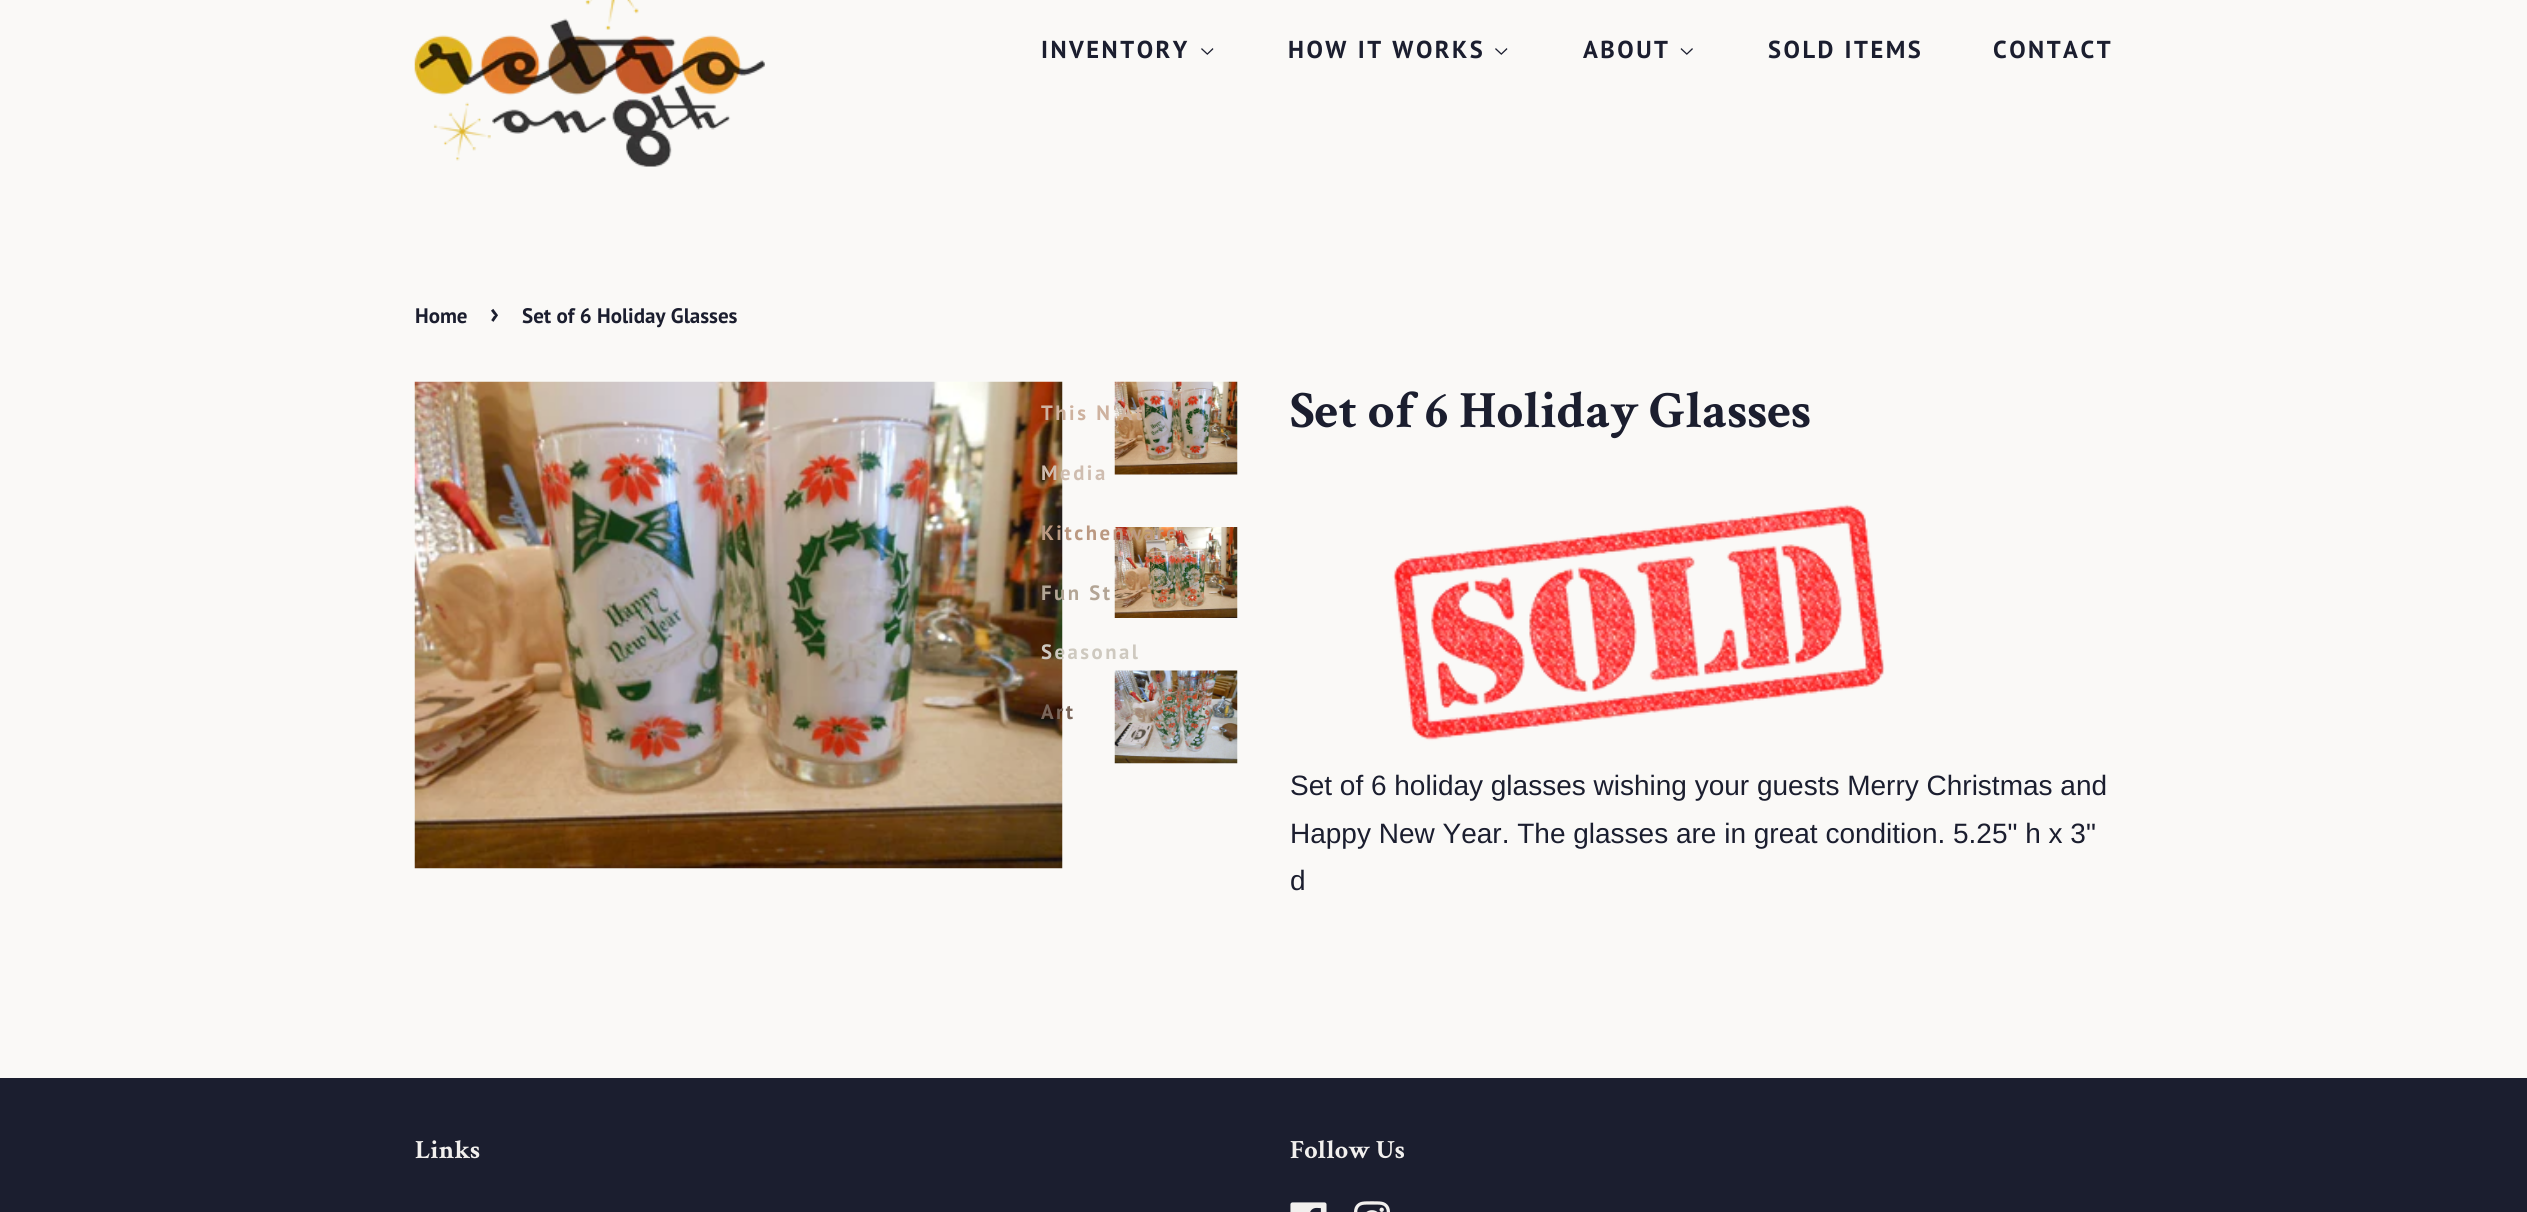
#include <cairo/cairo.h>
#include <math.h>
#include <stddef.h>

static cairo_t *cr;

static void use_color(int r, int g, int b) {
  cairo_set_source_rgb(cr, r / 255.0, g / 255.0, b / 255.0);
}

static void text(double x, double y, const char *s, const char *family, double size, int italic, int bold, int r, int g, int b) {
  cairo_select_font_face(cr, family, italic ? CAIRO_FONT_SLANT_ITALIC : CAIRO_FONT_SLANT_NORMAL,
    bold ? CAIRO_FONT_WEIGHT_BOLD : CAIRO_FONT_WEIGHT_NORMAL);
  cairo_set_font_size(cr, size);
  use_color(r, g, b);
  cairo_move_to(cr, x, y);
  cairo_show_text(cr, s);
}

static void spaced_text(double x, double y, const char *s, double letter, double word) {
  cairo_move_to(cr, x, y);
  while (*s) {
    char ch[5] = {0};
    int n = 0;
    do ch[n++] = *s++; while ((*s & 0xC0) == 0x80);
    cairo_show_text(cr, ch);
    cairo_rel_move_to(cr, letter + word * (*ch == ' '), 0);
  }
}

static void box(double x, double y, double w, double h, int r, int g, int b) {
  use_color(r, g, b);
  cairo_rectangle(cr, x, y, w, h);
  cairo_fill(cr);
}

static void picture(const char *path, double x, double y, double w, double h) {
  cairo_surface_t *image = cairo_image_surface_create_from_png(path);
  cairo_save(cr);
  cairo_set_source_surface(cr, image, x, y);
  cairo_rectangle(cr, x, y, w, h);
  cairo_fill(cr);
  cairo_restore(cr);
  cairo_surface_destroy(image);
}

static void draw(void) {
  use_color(250, 249, 247);
  cairo_paint(cr);
  picture("img_01.png", 414, 0, 351, 167);
  picture("img_02.png", 1201, 48, 13, 7);
  picture("img_02.png", 1495, 48, 13, 7);
  picture("img_03.png", 1680, 48, 13, 7);
  picture("img_04.png", 414, 381, 649, 488);
  picture("img_05.png", 1114, 381, 124, 94);
  picture("img_06.png", 1114, 527, 124, 91);
  picture("img_07.png", 1114, 670, 124, 94);
  picture("img_08.png", 1392, 504, 493, 237);
  box(0, 1078, 2527, 134, 27, 30, 47);
  picture("img_09.png", 1290, 1202, 37, 10);
  picture("img_10.png", 1354, 1201, 36, 11);
  cairo_select_font_face(cr, "PT Sans", CAIRO_FONT_SLANT_NORMAL, CAIRO_FONT_WEIGHT_BOLD);
  cairo_set_font_size(cr, 24.5);
  spaced_text(1041, 58, "INVENTORY", 2.5, 0);
  cairo_set_font_size(cr, 20.75);
  use_color(206, 178, 159);
  spaced_text(1041, 420, "This N'At", 2.5, 0);
  use_color(207, 189, 176);
  spaced_text(1041, 480, "Media", 2.5, 0);
  use_color(187, 153, 130);
  spaced_text(1041, 540, "Kitchenware", 2.5, 0);
  use_color(179, 165, 149);
  spaced_text(1041, 600, "Fun St", 2.5, 0);
  use_color(206, 201, 191);
  spaced_text(1041, 659, "Seasonal", 2.5, 0);
  use_color(122, 102, 90);
  spaced_text(1041, 719, "Art", 2.5, 0);
  cairo_set_font_size(cr, 24.5);
  use_color(27, 30, 47);
  spaced_text(1288, 58, "HOW IT WORKS", 2.5, 0);
  spaced_text(1583, 58, "ABOUT", 2.5, 0);
  spaced_text(1768, 58, "SOLD ITEMS", 2.5, 0);
  spaced_text(1993, 58, "CONTACT", 2.5, 0);
  text(415, 323, "Home", "PT Sans", 21, 0, 1, 27, 30, 47);
  text(490, 323, "›", "PT Sans", 29, 0, 1, 27, 30, 47);
  text(522, 323, "Set of 6 Holiday Glasses", "PT Sans", 21, 0, 1, 27, 30, 47);
  text(1290, 427, "Set of 6 Holiday Glasses", "Crimson Text", 52.5, 0, 1, 27, 30, 47);
  text(1290, 795, "Set of 6 holiday glasses wishing your guests Merry Christmas and", "Liberation Sans", 28, 0, 0, 27, 30, 47);
  text(1290, 843, "Happy New Year. The glasses are in great condition. 5.25\" h x 3\"", "Liberation Sans", 28, 0, 0, 27, 30, 47);
  text(1290, 890, "d", "Liberation Sans", 28, 0, 0, 27, 30, 47);
  text(415, 1158, "Links", "Crimson Text", 26.25, 0, 1, 242, 240, 238);
  text(1290, 1158, "Follow Us", "Crimson Text", 26.25, 0, 1, 242, 240, 238);
}

int main(void) {
  cairo_surface_t *surface = cairo_image_surface_create(CAIRO_FORMAT_RGB24, 2527, 1212);
  cr = cairo_create(surface);
  cairo_font_options_t *options = cairo_font_options_create();
  cairo_font_options_set_hint_metrics(options, CAIRO_HINT_METRICS_OFF);
  cairo_font_options_set_hint_style(options, CAIRO_HINT_STYLE_NONE);
  cairo_set_font_options(cr, options);
  cairo_set_miter_limit(cr, 4);
  draw();
  cairo_surface_write_to_png(surface, "out.png");
  cairo_font_options_destroy(options);
  cairo_destroy(cr);
  cairo_surface_destroy(surface);
  return 0;
}
